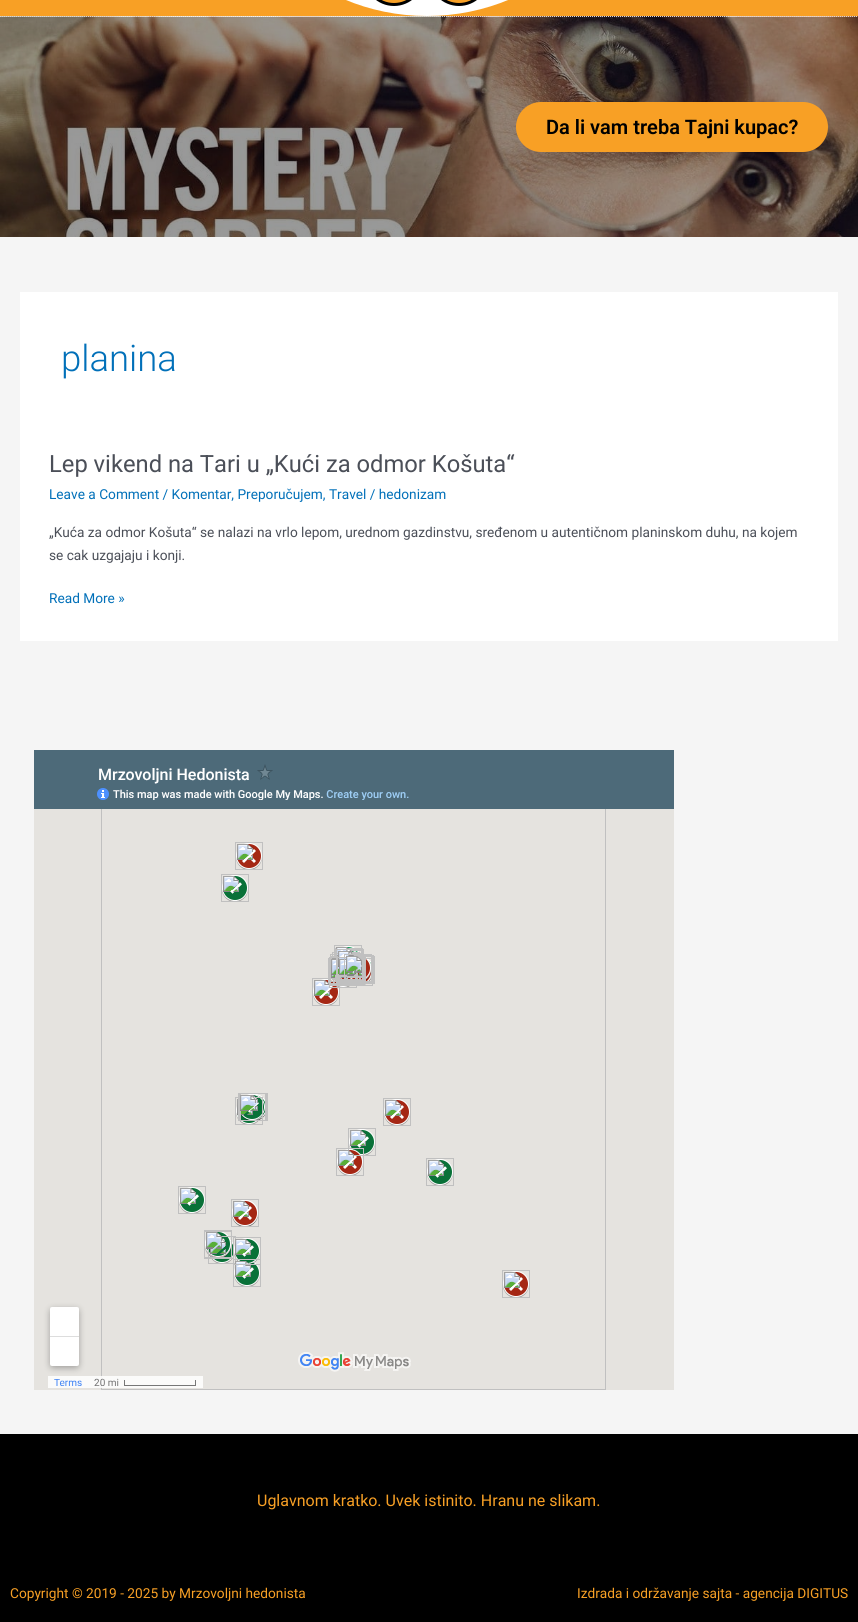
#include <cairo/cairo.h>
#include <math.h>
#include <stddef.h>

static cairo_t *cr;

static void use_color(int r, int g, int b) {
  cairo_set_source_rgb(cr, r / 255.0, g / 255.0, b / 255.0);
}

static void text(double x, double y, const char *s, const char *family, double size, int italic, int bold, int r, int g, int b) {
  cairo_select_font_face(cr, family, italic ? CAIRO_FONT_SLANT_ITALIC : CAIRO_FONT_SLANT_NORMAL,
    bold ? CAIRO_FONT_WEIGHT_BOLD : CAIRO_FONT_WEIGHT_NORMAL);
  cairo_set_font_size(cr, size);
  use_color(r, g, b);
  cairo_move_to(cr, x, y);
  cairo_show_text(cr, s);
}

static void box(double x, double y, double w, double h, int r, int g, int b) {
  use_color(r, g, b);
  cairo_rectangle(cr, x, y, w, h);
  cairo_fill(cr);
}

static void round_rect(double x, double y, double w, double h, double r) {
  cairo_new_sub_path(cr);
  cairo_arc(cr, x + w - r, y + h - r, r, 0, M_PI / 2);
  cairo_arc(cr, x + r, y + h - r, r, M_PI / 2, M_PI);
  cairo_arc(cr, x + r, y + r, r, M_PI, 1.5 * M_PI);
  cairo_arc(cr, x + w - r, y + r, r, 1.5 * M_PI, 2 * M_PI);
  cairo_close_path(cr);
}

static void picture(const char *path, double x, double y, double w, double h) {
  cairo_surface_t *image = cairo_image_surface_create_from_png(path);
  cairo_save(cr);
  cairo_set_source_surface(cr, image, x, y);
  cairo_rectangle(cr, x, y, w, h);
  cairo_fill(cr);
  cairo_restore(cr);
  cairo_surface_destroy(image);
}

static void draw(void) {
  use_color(245, 245, 245);
  cairo_paint(cr);
  box(0, 0, 858, 16, 248, 160, 37);
  use_color(255, 255, 255);
  round_rect(214, -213, 426, 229, 213);
  cairo_fill(cr);
  use_color(248, 160, 37);
  round_rect(365.5, -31.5, 57, 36, 28.5);
  cairo_fill_preserve(cr);
  use_color(0, 0, 0);
  cairo_set_line_width(cr, 3);
  cairo_stroke(cr);
  use_color(248, 160, 37);
  round_rect(430.5, -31.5, 57, 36, 28.5);
  cairo_fill_preserve(cr);
  use_color(0, 0, 0);
  cairo_stroke(cr);
  picture("img_01.png", 0, 16, 858, 221);
  cairo_new_path(cr);
  cairo_move_to(cr, 0, 16.5);
  cairo_line_to(cr, 858, 16.5);
  use_color(214, 214, 214);
  cairo_set_line_width(cr, 1);
  cairo_set_dash(cr, (double[]){1, 1}, 2, 0);
  cairo_stroke(cr);
  use_color(248, 160, 37);
  round_rect(516, 102, 312, 50, 25);
  cairo_fill(cr);
  box(20, 292, 818, 349, 255, 255, 255);
  picture("img_02.png", 34, 750, 640, 640);
  box(0, 1434, 858, 188, 0, 0, 0);
  text(546, 134, "Da li vam treba Tajni kupac?", "Roboto SemiBold", 20, 0, 0, 0, 0, 0);
  text(61, 371, "planina", "Roboto Light", 36.5, 0, 0, 1, 112, 185);
  text(49, 472, "Lep vikend na Tari u „Kući za odmor Košuta“", "Roboto", 23.75, 0, 0, 75, 79, 88);
  text(49, 499, "Leave a Comment / Komentar, Preporučujem, Travel / hedonizam", "Roboto", 13.68, 0, 0, 1, 112, 185);
  text(49, 537, "„Kuća za odmor Košuta“ se nalazi na vrlo lepom, urednom gazdinstvu, sređenom u autentičnom planinskom duhu, na kojem", "Roboto", 13.68, 0, 0, 75, 79, 88);
  text(49, 560, "se cak uzgajaju i konji.", "Roboto", 13.68, 0, 0, 75, 79, 88);
  text(49, 603, "Read More »", "Roboto", 13.68, 0, 0, 1, 112, 185);
  text(257, 1506, "Uglavnom kratko. Uvek istinito. Hranu ne slikam.", "Roboto", 16, 0, 0, 248, 160, 37);
  text(10, 1598, "Copyright © 2019 - 2025 by Mrzovoljni hedonista", "Roboto", 13.68, 0, 0, 248, 160, 37);
  text(577, 1598, "Izdrada i održavanje sajta - agencija DIGITUS", "Roboto", 13.68, 0, 0, 248, 160, 37);
}

int main(void) {
  cairo_surface_t *surface = cairo_image_surface_create(CAIRO_FORMAT_RGB24, 858, 1622);
  cr = cairo_create(surface);
  cairo_font_options_t *options = cairo_font_options_create();
  cairo_font_options_set_hint_metrics(options, CAIRO_HINT_METRICS_OFF);
  cairo_font_options_set_hint_style(options, CAIRO_HINT_STYLE_NONE);
  cairo_set_font_options(cr, options);
  cairo_set_miter_limit(cr, 4);
  draw();
  cairo_surface_write_to_png(surface, "out.png");
  cairo_font_options_destroy(options);
  cairo_destroy(cr);
  cairo_surface_destroy(surface);
  return 0;
}
